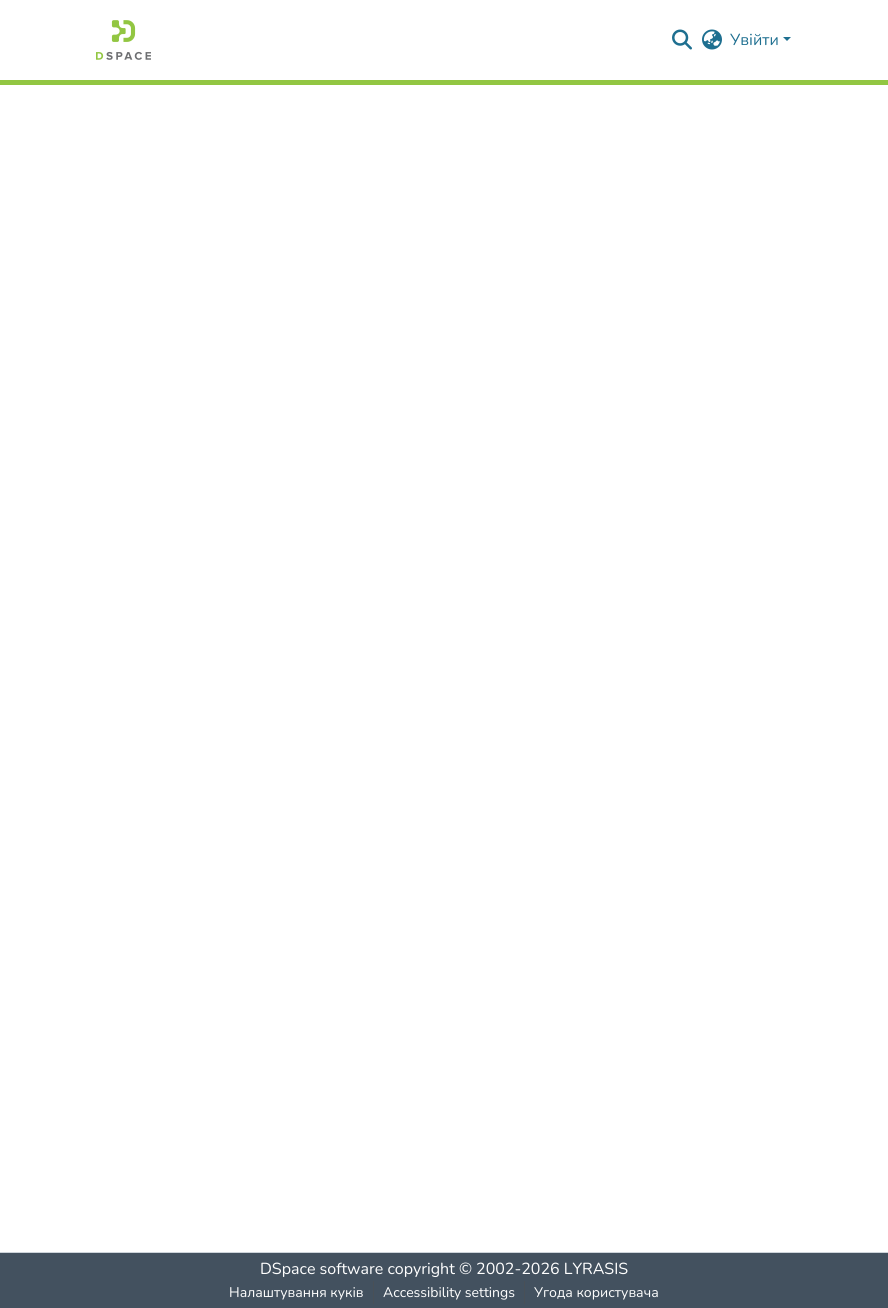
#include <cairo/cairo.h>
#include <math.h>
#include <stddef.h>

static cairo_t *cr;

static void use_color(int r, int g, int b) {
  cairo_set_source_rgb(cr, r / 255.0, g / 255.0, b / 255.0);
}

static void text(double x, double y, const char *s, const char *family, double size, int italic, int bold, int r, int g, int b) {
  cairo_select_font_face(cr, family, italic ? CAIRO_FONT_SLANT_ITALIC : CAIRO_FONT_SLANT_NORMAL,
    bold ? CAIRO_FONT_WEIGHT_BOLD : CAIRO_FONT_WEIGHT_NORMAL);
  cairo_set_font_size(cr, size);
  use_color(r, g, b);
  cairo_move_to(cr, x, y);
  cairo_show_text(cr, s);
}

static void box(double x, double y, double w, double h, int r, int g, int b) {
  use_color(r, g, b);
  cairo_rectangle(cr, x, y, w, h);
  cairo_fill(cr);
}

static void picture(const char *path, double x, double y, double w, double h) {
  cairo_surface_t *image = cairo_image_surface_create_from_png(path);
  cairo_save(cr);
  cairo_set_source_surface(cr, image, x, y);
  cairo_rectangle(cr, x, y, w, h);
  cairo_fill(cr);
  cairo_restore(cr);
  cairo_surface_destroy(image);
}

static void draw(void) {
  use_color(255, 255, 255);
  cairo_paint(cr);
  box(0, 80, 888, 5, 146, 198, 66);
  picture("img_01.png", 96, 20, 55, 40);
  picture("img_02.png", 672, 29, 20, 21);
  picture("img_03.png", 702, 29, 20, 21);
  use_color(30, 111, 144);
  cairo_new_path(cr);
  cairo_move_to(cr, 783, 37);
  cairo_line_to(cr, 791, 37);
  cairo_line_to(cr, 787, 41);
  cairo_close_path(cr);
  cairo_fill(cr);
  box(0, 1253, 888, 55, 67, 81, 95);
  box(0, 1252, 888, 1, 206, 212, 218);
  box(373, 1281, 1, 23, 73, 80, 87);
  box(524, 1281, 1, 23, 73, 80, 87);
  text(730, 45, "Увійти", "Nunito", 16, 0, 0, 30, 111, 144);
  text(260, 1274, "DSpace software copyright © 2002-2026 LYRASIS", "Nunito", 16, 0, 0, 255, 255, 255);
  text(229, 1297, "Налаштування куків", "Nunito", 14, 0, 0, 255, 255, 255);
  text(383, 1297, "Accessibility settings", "Nunito", 14, 0, 0, 255, 255, 255);
  text(534, 1297, "Угода користувача", "Nunito", 14, 0, 0, 255, 255, 255);
}

int main(void) {
  cairo_surface_t *surface = cairo_image_surface_create(CAIRO_FORMAT_RGB24, 888, 1308);
  cr = cairo_create(surface);
  cairo_font_options_t *options = cairo_font_options_create();
  cairo_font_options_set_hint_metrics(options, CAIRO_HINT_METRICS_OFF);
  cairo_font_options_set_hint_style(options, CAIRO_HINT_STYLE_NONE);
  cairo_set_font_options(cr, options);
  cairo_set_miter_limit(cr, 4);
  draw();
  cairo_surface_write_to_png(surface, "out.png");
  cairo_font_options_destroy(options);
  cairo_destroy(cr);
  cairo_surface_destroy(surface);
  return 0;
}
